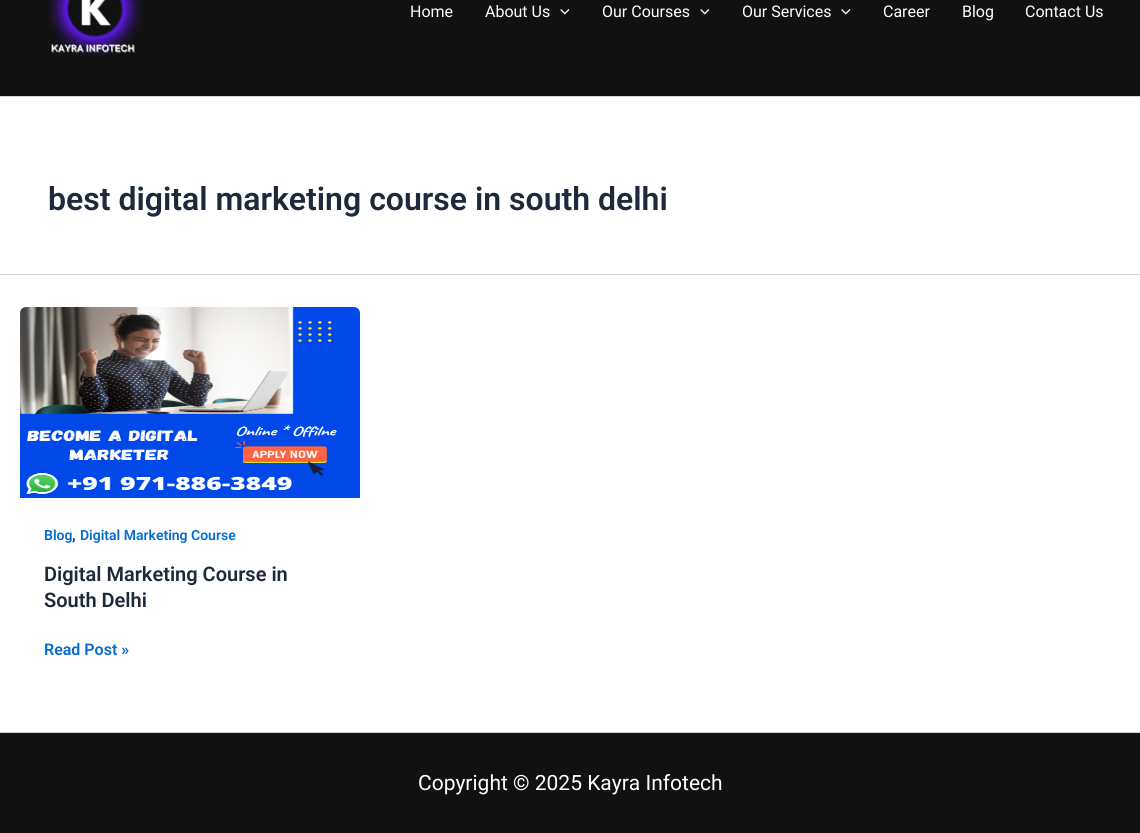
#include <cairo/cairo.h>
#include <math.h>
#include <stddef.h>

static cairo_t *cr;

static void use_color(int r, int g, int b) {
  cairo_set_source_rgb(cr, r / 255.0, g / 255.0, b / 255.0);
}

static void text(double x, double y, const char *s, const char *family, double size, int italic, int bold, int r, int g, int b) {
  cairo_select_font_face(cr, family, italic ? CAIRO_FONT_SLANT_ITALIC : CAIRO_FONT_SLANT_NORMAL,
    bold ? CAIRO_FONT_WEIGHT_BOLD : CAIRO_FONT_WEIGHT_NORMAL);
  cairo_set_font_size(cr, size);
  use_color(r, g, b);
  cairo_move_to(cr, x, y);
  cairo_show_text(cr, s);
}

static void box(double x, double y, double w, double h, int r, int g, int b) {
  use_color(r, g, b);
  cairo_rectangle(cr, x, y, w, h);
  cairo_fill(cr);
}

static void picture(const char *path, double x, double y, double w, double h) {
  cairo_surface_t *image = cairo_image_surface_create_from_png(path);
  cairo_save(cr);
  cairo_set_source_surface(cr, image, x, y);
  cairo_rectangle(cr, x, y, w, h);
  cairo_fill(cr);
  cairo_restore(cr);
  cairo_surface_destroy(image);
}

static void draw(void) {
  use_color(255, 255, 255);
  cairo_paint(cr);
  box(0, 0, 1140, 96, 17, 17, 17);
  box(0, 96, 1140, 1, 209, 213, 219);
  picture("img_01.png", 46, 0, 98, 58);
  picture("img_02.png", 560, 9, 10, 6);
  picture("img_02.png", 700, 9, 10, 6);
  picture("img_02.png", 841, 9, 10, 6);
  box(0, 274, 1140, 1, 209, 213, 219);
  picture("img_03.png", 20, 307, 340, 191);
  box(0, 733, 1140, 100, 17, 17, 17);
  box(0, 732, 1140, 1, 209, 213, 219);
  text(410, 17, "Home", "Roboto", 16, 0, 0, 255, 255, 255);
  text(485, 17, "About Us", "Roboto", 16, 0, 0, 255, 255, 255);
  text(602, 17, "Our Courses", "Roboto", 16, 0, 0, 255, 255, 255);
  text(742, 17, "Our Services", "Roboto", 16, 0, 0, 255, 255, 255);
  text(883, 17, "Career", "Roboto", 16, 0, 0, 255, 255, 255);
  text(962, 17, "Blog", "Roboto", 16, 0, 0, 255, 255, 255);
  text(1025, 17, "Contact Us", "Roboto", 16, 0, 0, 255, 255, 255);
  text(48, 210, "best digital marketing course in south delhi", "Roboto SemiBold", 32, 0, 0, 30, 41, 59);
  text(44, 540, "Blog", "Roboto SemiBold", 14, 0, 0, 4, 107, 210);
  text(72, 540, ",", "Roboto SemiBold", 16, 0, 0, 51, 65, 85);
  text(80, 540, "Digital Marketing Course", "Roboto SemiBold", 14, 0, 0, 4, 107, 210);
  text(44, 581, "Digital Marketing Course in", "Roboto SemiBold", 20, 0, 0, 30, 41, 59);
  text(44, 607, "South Delhi", "Roboto SemiBold", 20, 0, 0, 30, 41, 59);
  text(44, 655, "Read Post »", "Roboto SemiBold", 16, 0, 0, 4, 107, 210);
  text(418, 790, "Copyright © 2025 Kayra Infotech", "Roboto", 21, 0, 0, 255, 255, 255);
}

int main(void) {
  cairo_surface_t *surface = cairo_image_surface_create(CAIRO_FORMAT_RGB24, 1140, 833);
  cr = cairo_create(surface);
  cairo_font_options_t *options = cairo_font_options_create();
  cairo_font_options_set_hint_metrics(options, CAIRO_HINT_METRICS_OFF);
  cairo_font_options_set_hint_style(options, CAIRO_HINT_STYLE_NONE);
  cairo_set_font_options(cr, options);
  cairo_set_miter_limit(cr, 4);
  draw();
  cairo_surface_write_to_png(surface, "out.png");
  cairo_font_options_destroy(options);
  cairo_destroy(cr);
  cairo_surface_destroy(surface);
  return 0;
}
